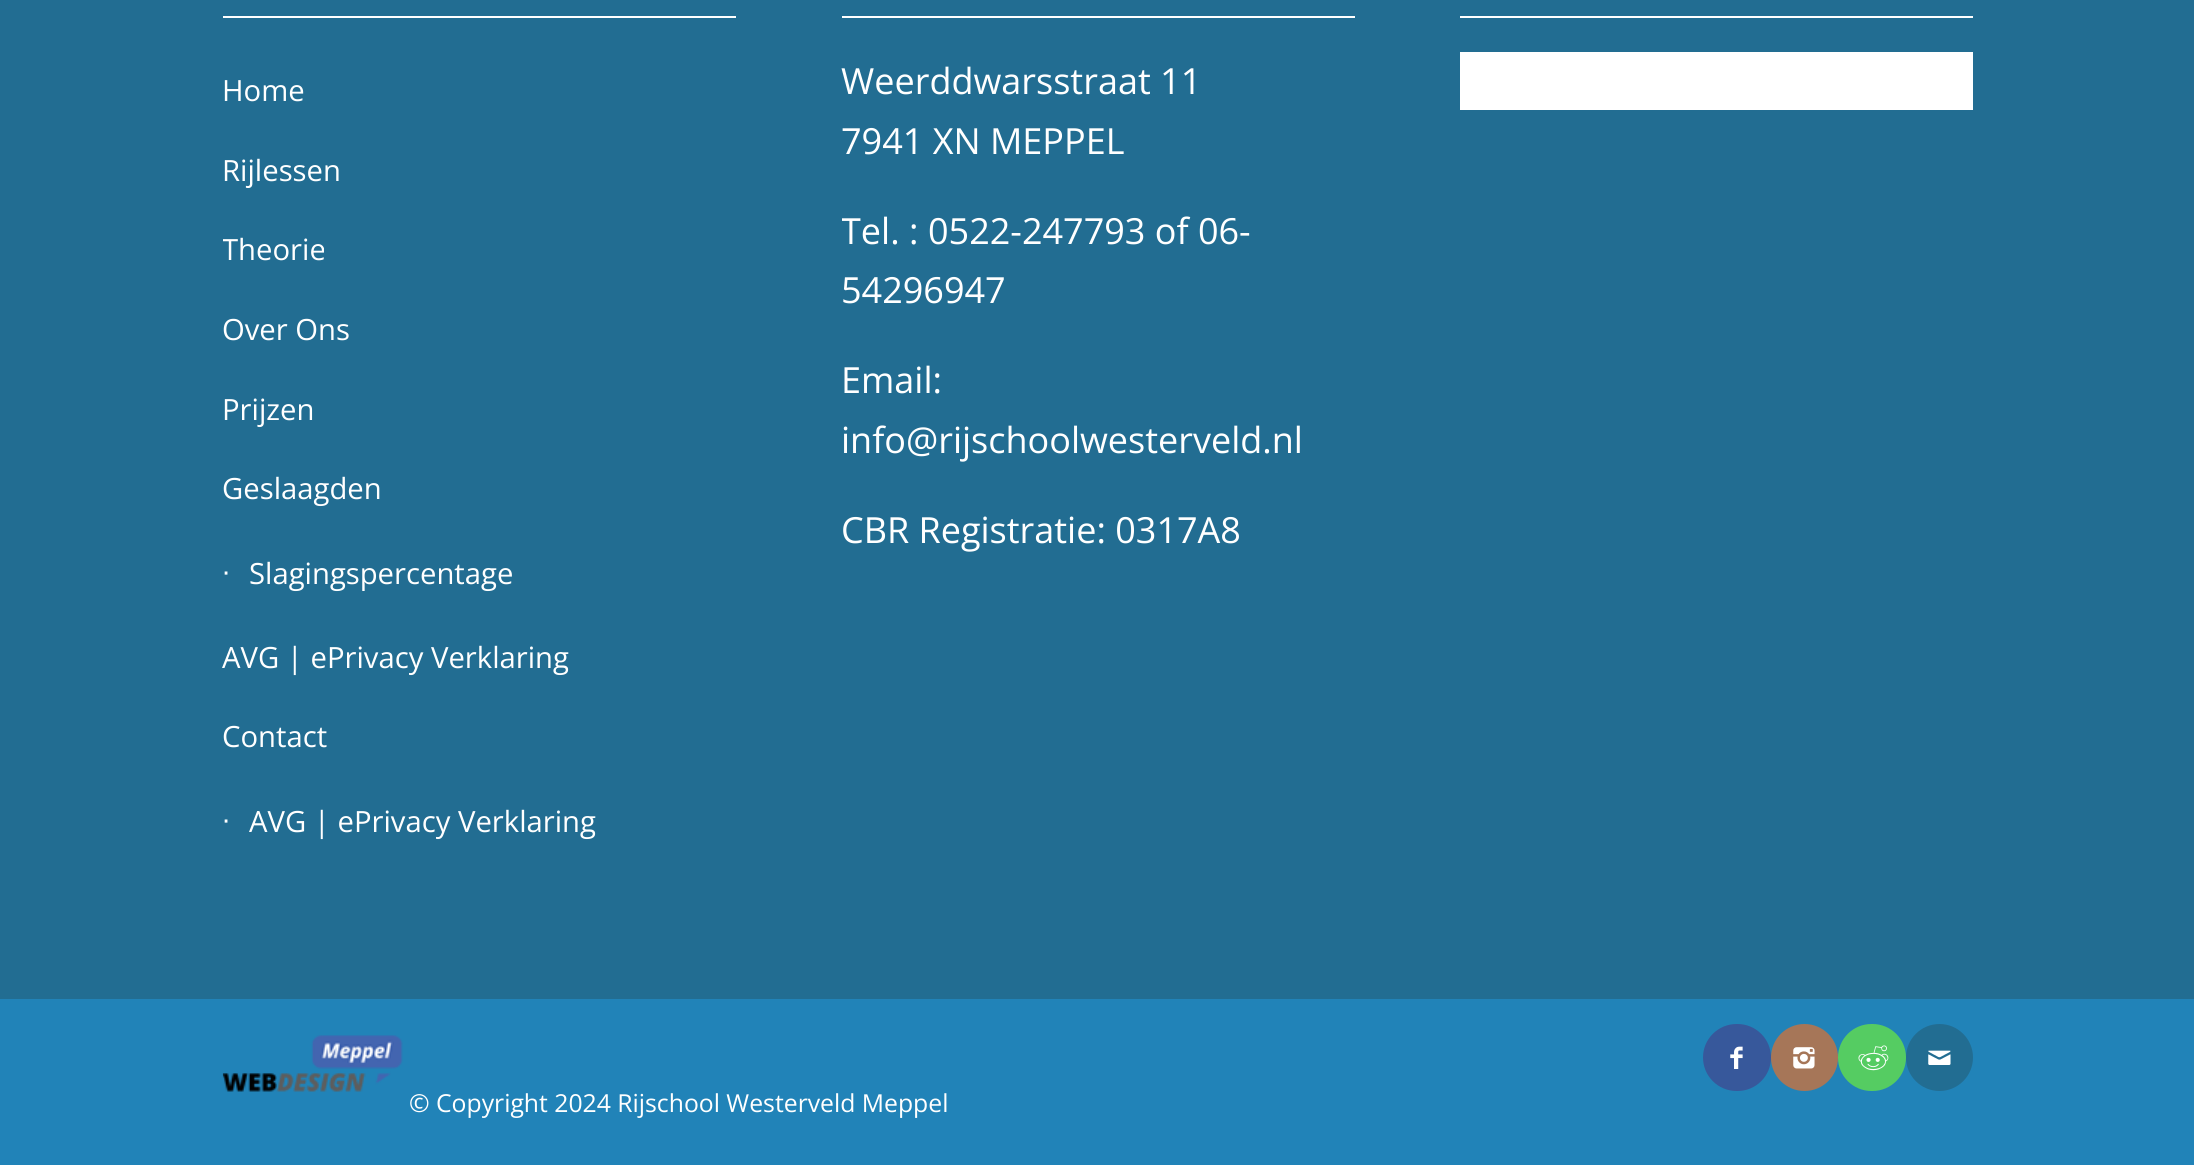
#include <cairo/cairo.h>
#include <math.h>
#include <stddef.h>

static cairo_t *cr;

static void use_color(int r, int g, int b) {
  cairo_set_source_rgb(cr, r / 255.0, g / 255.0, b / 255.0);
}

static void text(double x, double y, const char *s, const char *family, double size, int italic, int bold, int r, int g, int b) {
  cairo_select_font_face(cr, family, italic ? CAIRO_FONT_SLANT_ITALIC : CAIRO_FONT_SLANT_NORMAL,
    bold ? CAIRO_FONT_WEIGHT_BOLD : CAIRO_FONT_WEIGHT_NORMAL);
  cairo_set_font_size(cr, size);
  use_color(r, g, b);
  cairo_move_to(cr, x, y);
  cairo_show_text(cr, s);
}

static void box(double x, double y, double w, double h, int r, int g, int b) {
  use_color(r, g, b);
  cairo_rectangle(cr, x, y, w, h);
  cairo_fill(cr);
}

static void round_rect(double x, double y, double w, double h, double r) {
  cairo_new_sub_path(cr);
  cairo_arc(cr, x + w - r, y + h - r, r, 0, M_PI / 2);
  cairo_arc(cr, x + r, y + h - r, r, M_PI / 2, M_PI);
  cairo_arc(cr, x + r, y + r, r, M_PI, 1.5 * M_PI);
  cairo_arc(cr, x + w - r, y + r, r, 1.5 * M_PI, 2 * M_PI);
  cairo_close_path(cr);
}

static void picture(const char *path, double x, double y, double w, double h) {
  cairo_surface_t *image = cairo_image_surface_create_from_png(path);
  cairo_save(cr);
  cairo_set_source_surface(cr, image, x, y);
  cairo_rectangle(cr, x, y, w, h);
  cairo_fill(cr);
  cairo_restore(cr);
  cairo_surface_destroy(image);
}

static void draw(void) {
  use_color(34, 109, 146);
  cairo_paint(cr);
  box(223, 16, 513, 2, 255, 255, 255);
  box(842, 16, 513, 2, 255, 255, 255);
  box(1460, 16, 513, 2, 255, 255, 255);
  box(1460, 52, 513, 58, 255, 255, 255);
  box(0, 999, 2194, 166, 33, 131, 184);
  use_color(55, 88, 155);
  round_rect(1703, 1024, 68, 67, 33.5);
  cairo_fill(cr);
  picture("img_01.png", 1730, 1046, 13, 23);
  use_color(166, 118, 88);
  cairo_arc(cr, 1804.5, 1057.5, 33.5, 0, 2 * M_PI);
  cairo_fill(cr);
  picture("img_02.png", 1793, 1047, 22, 22);
  use_color(85, 204, 98);
  round_rect(1838, 1024, 68, 67, 33.5);
  cairo_fill(cr);
  picture("img_03.png", 1858, 1045, 31, 26);
  use_color(34, 109, 146);
  cairo_arc(cr, 1939.5, 1057.5, 33.5, 0, 2 * M_PI);
  cairo_fill(cr);
  picture("img_04.png", 1928, 1050, 23, 15);
  picture("img_05.png", 222, 1035, 181, 57);
  text(222, 101, "Home", "Open Sans", 29.25, 0, 0, 255, 255, 255);
  text(222, 181, "Rijlessen", "Open Sans", 29.25, 0, 0, 255, 255, 255);
  cairo_save(cr);
  cairo_rectangle(cr, 223, 0, 513, 866);
  cairo_clip(cr);
  text(222, 260, "Theorie", "Open Sans", 29.25, 0, 0, 255, 255, 255);
  cairo_restore(cr);
  text(222, 340, "Over Ons", "Open Sans", 29.25, 0, 0, 255, 255, 255);
  text(222, 420, "Prijzen", "Open Sans", 29.25, 0, 0, 255, 255, 255);
  text(222, 499, "Geslaagden", "Open Sans", 29.25, 0, 0, 255, 255, 255);
  text(222, 581, "∙", "Liberation Sans", 29.25, 0, 0, 255, 255, 255);
  text(249, 584, "Slagingspercentage", "Open Sans", 29.25, 0, 0, 255, 255, 255);
  text(222, 668, "AVG | ePrivacy Verklaring", "Open Sans", 29.25, 0, 0, 255, 255, 255);
  text(222, 747, "Contact", "Open Sans", 29.25, 0, 0, 255, 255, 255);
  text(222, 829, "∙", "Liberation Sans", 29.25, 0, 0, 255, 255, 255);
  text(249, 832, "AVG | ePrivacy Verklaring", "Open Sans", 29.25, 0, 0, 255, 255, 255);
  text(841, 94, "Weerddwarsstraat 11", "Open Sans", 36, 0, 0, 255, 255, 255);
  text(841, 154, "7941 XN MEPPEL", "Open Sans", 36, 0, 0, 255, 255, 255);
  cairo_save(cr);
  cairo_rectangle(cr, 842, 0, 513, 590);
  cairo_clip(cr);
  text(841, 244, "Tel. :", "Open Sans", 36, 0, 0, 255, 255, 255);
  cairo_restore(cr);
  text(928, 244, "0522-247793 of 06-", "Open Sans", 36, 0, 0, 255, 255, 255);
  text(841, 303, "54296947", "Open Sans", 36, 0, 0, 255, 255, 255);
  text(841, 393, "Email:", "Open Sans", 36, 0, 0, 255, 255, 255);
  text(841, 453, "info@rijschoolwesterveld.nl", "Open Sans", 36, 0, 0, 255, 255, 255);
  text(841, 543, "CBR Registratie: 0317A8", "Open Sans", 36, 0, 0, 255, 255, 255);
  text(409, 1112, "© Copyright 2024 Rijschool Westerveld Meppel", "Open Sans", 24.75, 0, 0, 255, 255, 255);
}

int main(void) {
  cairo_surface_t *surface = cairo_image_surface_create(CAIRO_FORMAT_RGB24, 2194, 1165);
  cr = cairo_create(surface);
  cairo_font_options_t *options = cairo_font_options_create();
  cairo_font_options_set_hint_metrics(options, CAIRO_HINT_METRICS_OFF);
  cairo_font_options_set_hint_style(options, CAIRO_HINT_STYLE_NONE);
  cairo_set_font_options(cr, options);
  cairo_set_miter_limit(cr, 4);
  draw();
  cairo_surface_write_to_png(surface, "out.png");
  cairo_font_options_destroy(options);
  cairo_destroy(cr);
  cairo_surface_destroy(surface);
  return 0;
}
